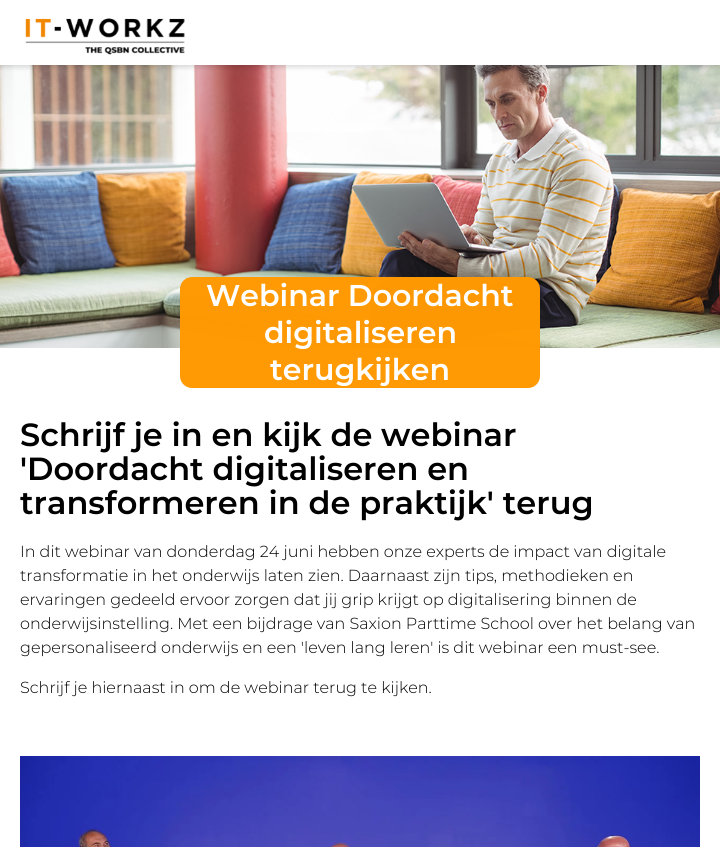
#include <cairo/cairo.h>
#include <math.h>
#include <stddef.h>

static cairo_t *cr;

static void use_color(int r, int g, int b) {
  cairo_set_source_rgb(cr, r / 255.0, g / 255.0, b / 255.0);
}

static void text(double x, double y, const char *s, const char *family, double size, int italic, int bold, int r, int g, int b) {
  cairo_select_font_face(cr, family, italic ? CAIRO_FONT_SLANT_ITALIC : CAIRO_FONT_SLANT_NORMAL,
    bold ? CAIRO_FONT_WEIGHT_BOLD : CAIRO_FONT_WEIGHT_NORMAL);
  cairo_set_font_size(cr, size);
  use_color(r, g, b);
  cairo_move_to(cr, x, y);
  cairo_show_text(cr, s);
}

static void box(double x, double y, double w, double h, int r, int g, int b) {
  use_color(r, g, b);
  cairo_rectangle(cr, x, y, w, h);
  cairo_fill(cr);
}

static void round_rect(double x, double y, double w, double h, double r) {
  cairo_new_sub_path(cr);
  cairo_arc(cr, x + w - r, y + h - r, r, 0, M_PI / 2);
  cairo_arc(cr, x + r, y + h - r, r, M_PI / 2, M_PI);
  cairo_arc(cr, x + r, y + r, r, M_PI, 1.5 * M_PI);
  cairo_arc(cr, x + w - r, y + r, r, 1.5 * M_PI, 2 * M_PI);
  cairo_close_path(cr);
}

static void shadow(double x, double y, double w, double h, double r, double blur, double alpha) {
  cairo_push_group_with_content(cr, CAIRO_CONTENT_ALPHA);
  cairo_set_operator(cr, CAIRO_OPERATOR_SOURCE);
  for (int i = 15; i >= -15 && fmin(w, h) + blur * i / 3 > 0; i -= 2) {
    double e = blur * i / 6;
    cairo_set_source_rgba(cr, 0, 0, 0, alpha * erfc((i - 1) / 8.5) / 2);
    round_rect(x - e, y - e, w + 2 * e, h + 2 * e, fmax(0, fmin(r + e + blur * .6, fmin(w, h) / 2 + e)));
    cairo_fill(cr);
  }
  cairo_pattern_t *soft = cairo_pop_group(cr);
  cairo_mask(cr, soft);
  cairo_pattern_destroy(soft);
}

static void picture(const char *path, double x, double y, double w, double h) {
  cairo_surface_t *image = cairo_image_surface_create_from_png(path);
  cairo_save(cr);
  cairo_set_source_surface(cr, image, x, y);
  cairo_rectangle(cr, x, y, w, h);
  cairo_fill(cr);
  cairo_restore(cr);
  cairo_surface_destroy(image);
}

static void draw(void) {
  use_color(255, 255, 255);
  cairo_paint(cr);
  picture("img_02.png", 0, 65, 720, 283);
  use_color(0, 0, 0);
  shadow(0, 2, 720, 65, 0, 2.5, 0.15);
  box(0, 0, 720, 65, 255, 255, 255);
  picture("img_01.png", 25, 18, 160, 37);
  cairo_set_source_rgba(cr, 1, 0.6, 0.008, 0.99);
  round_rect(180, 277, 360, 111, 12);
  cairo_fill(cr);
  picture("img_03.png", 20, 756, 680, 91);
  text(206, 306, "Webinar Doordacht", "Montserrat SemiBold", 30, 0, 0, 255, 255, 255);
  text(264, 343, "digitaliseren", "Montserrat SemiBold", 30, 0, 0, 255, 255, 255);
  text(270, 380, "terugkijken", "Montserrat SemiBold", 30, 0, 0, 255, 255, 255);
  text(20, 446, "Schrijf je in en kijk de webinar", "Montserrat SemiBold", 32, 0, 0, 0, 0, 0);
  text(20, 480, "'Doordacht digitaliseren en", "Montserrat SemiBold", 32, 0, 0, 0, 0, 0);
  text(20, 514, "transformeren in de praktijk' terug", "Montserrat SemiBold", 32, 0, 0, 0, 0, 0);
  text(20, 557, "In dit webinar van donderdag 24 juni hebben onze experts de impact van digitale", "Montserrat Light", 16, 0, 0, 0, 0, 0);
  text(20, 581, "transformatie in het onderwijs laten zien. Daarnaast zijn tips, methodieken en", "Montserrat Light", 16, 0, 0, 0, 0, 0);
  text(20, 605, "ervaringen gedeeld ervoor zorgen dat jij grip krijgt op digitalisering binnen de", "Montserrat Light", 16, 0, 0, 0, 0, 0);
  text(20, 629, "onderwijsinstelling. Met een bijdrage van Saxion Parttime School over het belang van", "Montserrat Light", 16, 0, 0, 0, 0, 0);
  text(20, 653, "gepersonaliseerd onderwijs en een 'leven lang leren' is dit webinar een must-see.", "Montserrat Light", 16, 0, 0, 0, 0, 0);
  text(20, 693, "Schrijf je hiernaast in om de webinar terug te kijken.", "Montserrat Light", 16, 0, 0, 0, 0, 0);
}

int main(void) {
  cairo_surface_t *surface = cairo_image_surface_create(CAIRO_FORMAT_RGB24, 720, 847);
  cr = cairo_create(surface);
  cairo_font_options_t *options = cairo_font_options_create();
  cairo_font_options_set_hint_metrics(options, CAIRO_HINT_METRICS_OFF);
  cairo_font_options_set_hint_style(options, CAIRO_HINT_STYLE_NONE);
  cairo_set_font_options(cr, options);
  cairo_set_miter_limit(cr, 4);
  draw();
  cairo_surface_write_to_png(surface, "out.png");
  cairo_font_options_destroy(options);
  cairo_destroy(cr);
  cairo_surface_destroy(surface);
  return 0;
}
